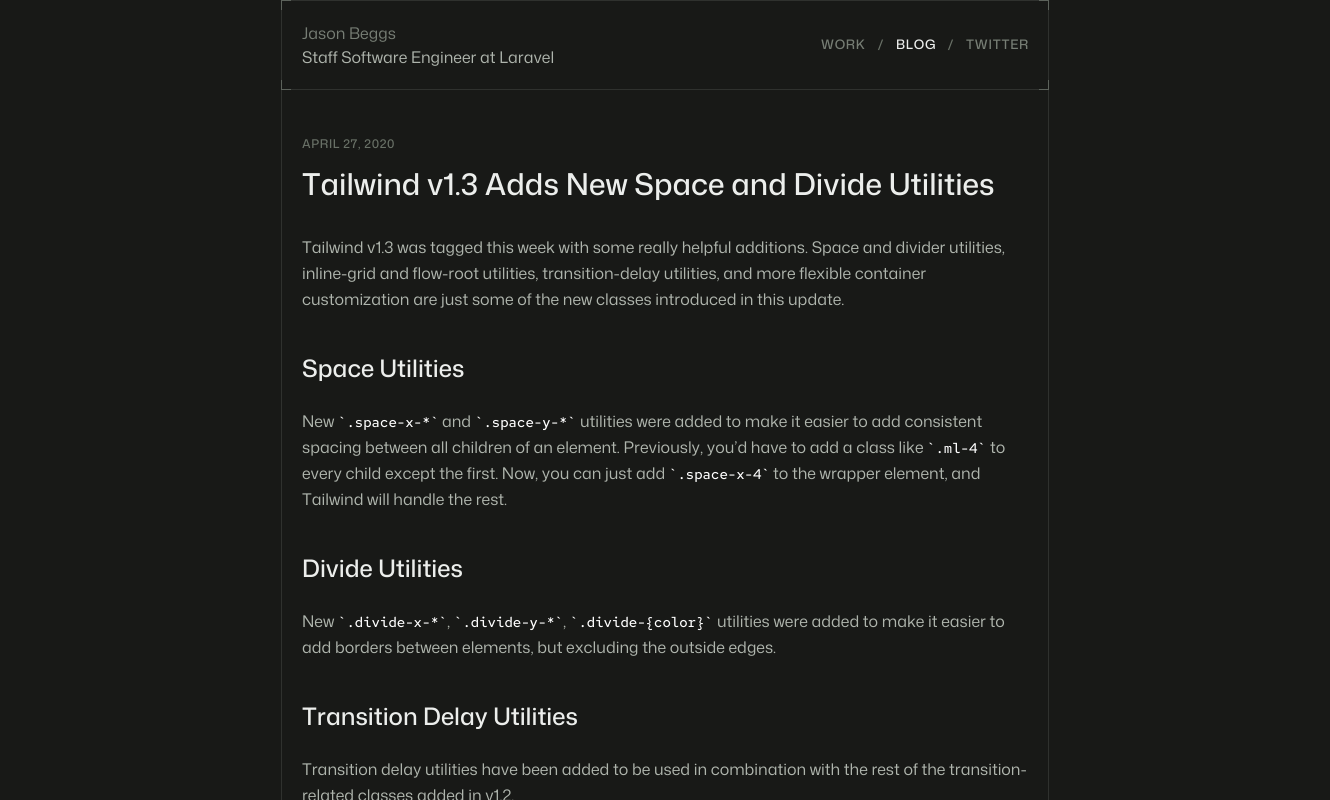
#include <cairo/cairo.h>
#include <math.h>
#include <stddef.h>

static cairo_t *cr;

static void use_color(int r, int g, int b) {
  cairo_set_source_rgb(cr, r / 255.0, g / 255.0, b / 255.0);
}

static void text(double x, double y, const char *s, const char *family, double size, int italic, int bold, int r, int g, int b) {
  cairo_select_font_face(cr, family, italic ? CAIRO_FONT_SLANT_ITALIC : CAIRO_FONT_SLANT_NORMAL,
    bold ? CAIRO_FONT_WEIGHT_BOLD : CAIRO_FONT_WEIGHT_NORMAL);
  cairo_set_font_size(cr, size);
  use_color(r, g, b);
  cairo_move_to(cr, x, y);
  cairo_show_text(cr, s);
}

static void spaced_text(double x, double y, const char *s, double letter, double word) {
  cairo_move_to(cr, x, y);
  while (*s) {
    char ch[5] = {0};
    int n = 0;
    do ch[n++] = *s++; while ((*s & 0xC0) == 0x80);
    cairo_show_text(cr, ch);
    cairo_rel_move_to(cr, letter + word * (*ch == ' '), 0);
  }
}

static void box(double x, double y, double w, double h, int r, int g, int b) {
  use_color(r, g, b);
  cairo_rectangle(cr, x, y, w, h);
  cairo_fill(cr);
}

static void draw(void) {
  use_color(24, 25, 23);
  cairo_paint(cr);
  box(1048, 10, 1, 790, 47, 49, 46);
  box(281, 10, 1, 790, 47, 49, 46);
  box(291, 0, 748, 1, 47, 49, 46);
  box(291, 89, 748, 1, 47, 49, 46);
  box(281, 0, 10, 1, 92, 98, 91);
  box(281, 0, 1, 10, 92, 98, 91);
  box(1039, 0, 10, 1, 92, 98, 91);
  box(1048, 0, 1, 10, 92, 98, 91);
  box(281, 89, 10, 1, 92, 98, 91);
  box(281, 80, 1, 10, 92, 98, 91);
  box(1048, 80, 1, 10, 92, 98, 91);
  box(1039, 89, 10, 1, 92, 98, 91);
  text(302, 39, "Jason Beggs", "Mona Sans", 16, 0, 0, 118, 125, 116);
  text(302, 63, "Staff Software Engineer at Laravel", "Mona Sans", 16, 0, 0, 175, 181, 173);
  cairo_select_font_face(cr, "Mona Sans Medium", CAIRO_FONT_SLANT_NORMAL, CAIRO_FONT_WEIGHT_NORMAL);
  cairo_set_font_size(cr, 13);
  use_color(118, 125, 116);
  spaced_text(821, 49, "WORK", 0.75, 0);
  use_color(104, 112, 102);
  spaced_text(878, 49, "/", 0.75, 0);
  use_color(236, 238, 236);
  spaced_text(896, 49, "BLOG", 0.75, 0);
  use_color(104, 112, 102);
  spaced_text(948, 49, "/", 0.75, 0);
  use_color(118, 125, 116);
  spaced_text(966, 49, "TWITTER", 0.75, 0);
  cairo_set_font_size(cr, 12);
  use_color(104, 112, 102);
  spaced_text(302, 148, "APRIL 27, 2020", 0.6, 0);
  text(302, 195, "Tailwind v1.3 Adds New Space and Divide Utilities", "Mona Sans Medium", 30, 0, 0, 236, 238, 236);
  text(302, 253, "Tailwind v1.3 was tagged this week with some really helpful additions. Space and divider utilities,", "Mona Sans", 16, 0, 0, 175, 181, 173);
  text(302, 279, "inline-grid and flow-root utilities, transition-delay utilities, and more flexible container", "Mona Sans", 16, 0, 0, 175, 181, 173);
  text(302, 305, "customization are just some of the new classes introduced in this update.", "Mona Sans", 16, 0, 0, 175, 181, 173);
  text(302, 377, "Space Utilities", "Mona Sans Medium", 24, 0, 0, 236, 238, 236);
  text(302, 427, "New", "Mona Sans", 16, 0, 0, 175, 181, 173);
  text(338, 427, "`.space-x-*`", "Red Hat Mono Medium", 14, 0, 0, 255, 255, 255);
  text(442, 427, "and", "Mona Sans", 16, 0, 0, 175, 181, 173);
  text(475, 427, "`.space-y-*`", "Red Hat Mono Medium", 14, 0, 0, 255, 255, 255);
  text(580, 427, "utilities were added to make it easier to add consistent", "Mona Sans", 16, 0, 0, 175, 181, 173);
  text(302, 453, "spacing between all children of an element. Previously, you’d have to add a class like", "Mona Sans", 16, 0, 0, 175, 181, 173);
  text(927, 453, "`.ml-4`", "Red Hat Mono Medium", 14, 0, 0, 255, 255, 255);
  text(990, 453, "to", "Mona Sans", 16, 0, 0, 175, 181, 173);
  text(302, 479, "every child except the first. Now, you can just add", "Mona Sans", 16, 0, 0, 175, 181, 173);
  text(669, 479, "`.space-x-4`", "Red Hat Mono Medium", 14, 0, 0, 255, 255, 255);
  text(773, 479, "to the wrapper element, and", "Mona Sans", 16, 0, 0, 175, 181, 173);
  text(302, 505, "Tailwind will handle the rest.", "Mona Sans", 16, 0, 0, 175, 181, 173);
  text(302, 577, "Divide Utilities", "Mona Sans Medium", 24, 0, 0, 236, 238, 236);
  text(302, 627, "New", "Mona Sans", 16, 0, 0, 175, 181, 173);
  text(338, 627, "`.divide-x-*`", "Red Hat Mono Medium", 14, 0, 0, 255, 255, 255);
  text(447, 627, ",", "Mona Sans", 16, 0, 0, 175, 181, 173);
  text(454, 627, "`.divide-y-*`", "Red Hat Mono Medium", 14, 0, 0, 255, 255, 255);
  text(563, 627, ",", "Mona Sans", 16, 0, 0, 175, 181, 173);
  text(570, 627, "`.divide-{color}`", "Red Hat Mono Medium", 14, 0, 0, 255, 255, 255);
  text(717, 627, "utilities were added to make it easier to", "Mona Sans", 16, 0, 0, 175, 181, 173);
  text(302, 653, "add borders between elements, but excluding the outside edges.", "Mona Sans", 16, 0, 0, 175, 181, 173);
  text(302, 725, "Transition Delay Utilities", "Mona Sans Medium", 24, 0, 0, 236, 238, 236);
  text(302, 775, "Transition delay utilities have been added to be used in combination with the rest of the transition-", "Mona Sans", 16, 0, 0, 175, 181, 173);
  text(302, 801, "related classes added in v1.2.", "Mona Sans", 16, 0, 0, 175, 181, 173);
}

int main(void) {
  cairo_surface_t *surface = cairo_image_surface_create(CAIRO_FORMAT_RGB24, 1330, 800);
  cr = cairo_create(surface);
  cairo_font_options_t *options = cairo_font_options_create();
  cairo_font_options_set_hint_metrics(options, CAIRO_HINT_METRICS_OFF);
  cairo_font_options_set_hint_style(options, CAIRO_HINT_STYLE_NONE);
  cairo_set_font_options(cr, options);
  cairo_set_miter_limit(cr, 4);
  draw();
  cairo_surface_write_to_png(surface, "out.png");
  cairo_font_options_destroy(options);
  cairo_destroy(cr);
  cairo_surface_destroy(surface);
  return 0;
}
